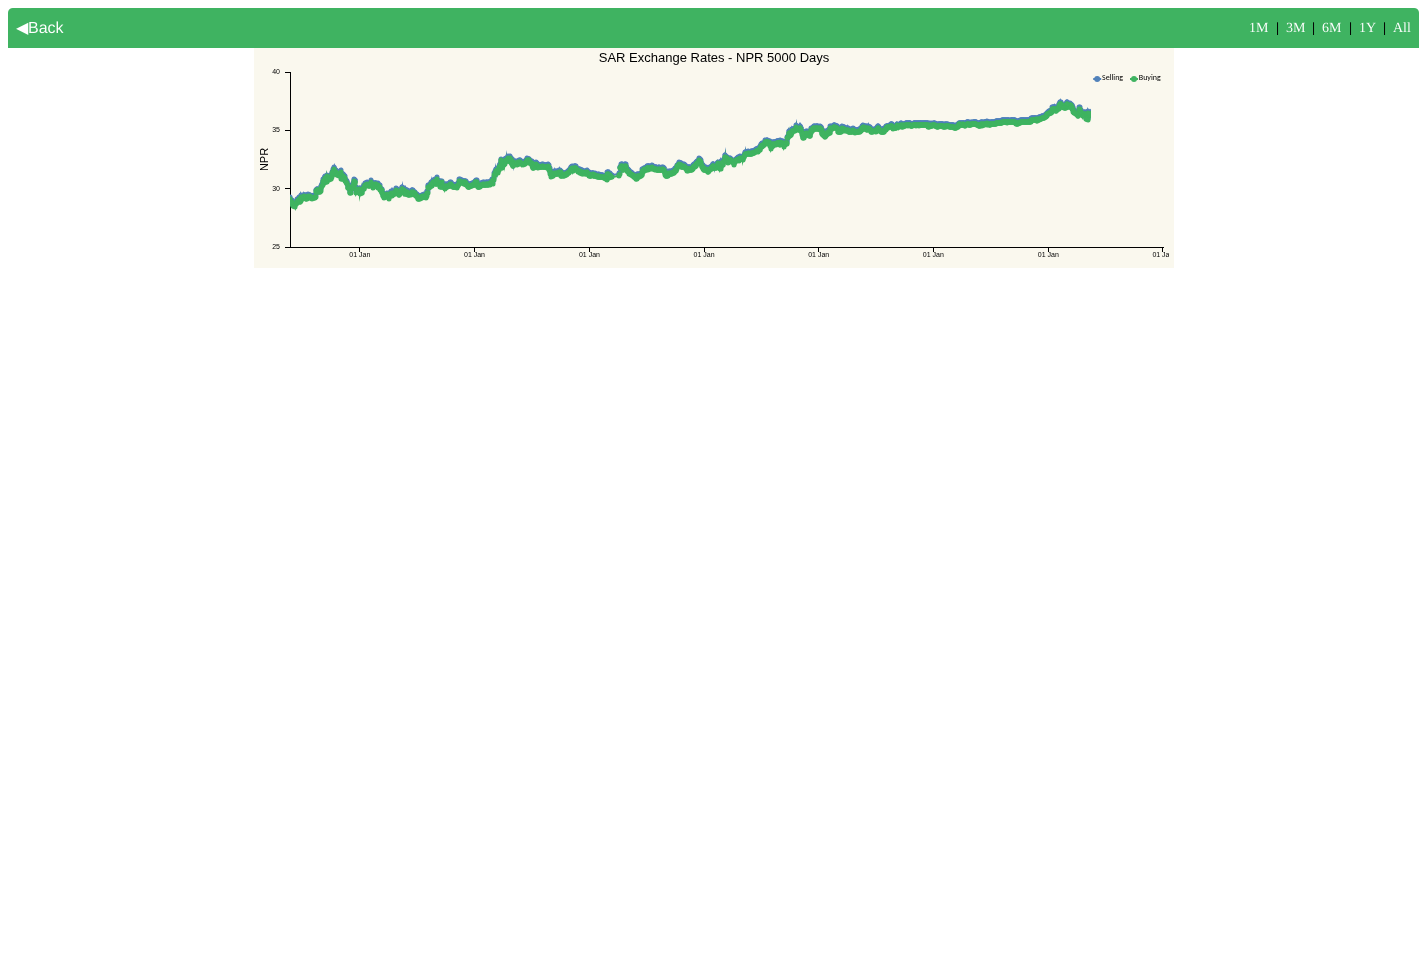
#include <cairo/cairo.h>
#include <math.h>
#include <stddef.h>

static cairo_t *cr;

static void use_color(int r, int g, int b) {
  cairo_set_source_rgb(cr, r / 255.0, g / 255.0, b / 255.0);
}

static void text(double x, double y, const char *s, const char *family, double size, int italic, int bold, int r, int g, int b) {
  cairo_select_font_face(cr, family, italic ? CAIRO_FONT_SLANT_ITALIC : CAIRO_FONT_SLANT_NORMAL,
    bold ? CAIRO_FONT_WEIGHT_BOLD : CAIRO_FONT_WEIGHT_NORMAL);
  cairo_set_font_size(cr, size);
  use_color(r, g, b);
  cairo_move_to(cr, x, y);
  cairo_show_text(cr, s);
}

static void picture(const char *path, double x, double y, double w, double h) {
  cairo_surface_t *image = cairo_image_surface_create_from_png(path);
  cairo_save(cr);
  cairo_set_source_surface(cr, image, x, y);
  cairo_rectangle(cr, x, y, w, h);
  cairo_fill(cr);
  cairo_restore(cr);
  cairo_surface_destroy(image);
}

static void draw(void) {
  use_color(255, 255, 255);
  cairo_paint(cr);
  use_color(63, 179, 97);
  cairo_new_path(cr);
  cairo_move_to(cr, 13, 8);
  cairo_line_to(cr, 1414, 8);
  cairo_curve_to(cr, 1417, 8, 1419, 10, 1419, 13);
  cairo_line_to(cr, 1419, 48);
  cairo_line_to(cr, 8, 48);
  cairo_line_to(cr, 8, 13);
  cairo_curve_to(cr, 8, 10, 10, 8, 13, 8);
  cairo_close_path(cr);
  cairo_fill(cr);
  picture("img_01.png", 254, 48, 920, 220);
  text(16, 33, "◀", "DejaVu Sans", 16, 0, 0, 255, 255, 255);
  text(28, 33, "Back", "Liberation Sans", 16, 0, 0, 255, 255, 255);
  text(1249, 32, "1M", "Liberation Serif", 14, 0, 0, 255, 255, 255);
  text(1276, 32, "|", "Liberation Serif", 14, 0, 1, 0, 0, 0);
  text(1286, 32, "3M", "Liberation Serif", 14, 0, 0, 255, 255, 255);
  text(1312, 32, "|", "Liberation Serif", 14, 0, 1, 0, 0, 0);
  text(1322, 32, "6M", "Liberation Serif", 14, 0, 0, 255, 255, 255);
  text(1349, 32, "|", "Liberation Serif", 14, 0, 1, 0, 0, 0);
  text(1359, 32, "1Y", "Liberation Serif", 14, 0, 0, 255, 255, 255);
  text(1383, 32, "|", "Liberation Serif", 14, 0, 1, 0, 0, 0);
  text(1393, 32, "All", "Liberation Serif", 14, 0, 0, 255, 255, 255);
}

int main(void) {
  cairo_surface_t *surface = cairo_image_surface_create(CAIRO_FORMAT_RGB24, 1427, 967);
  cr = cairo_create(surface);
  cairo_font_options_t *options = cairo_font_options_create();
  cairo_font_options_set_hint_metrics(options, CAIRO_HINT_METRICS_OFF);
  cairo_font_options_set_hint_style(options, CAIRO_HINT_STYLE_NONE);
  cairo_set_font_options(cr, options);
  cairo_set_miter_limit(cr, 4);
  draw();
  cairo_surface_write_to_png(surface, "out.png");
  cairo_font_options_destroy(options);
  cairo_destroy(cr);
  cairo_surface_destroy(surface);
  return 0;
}
